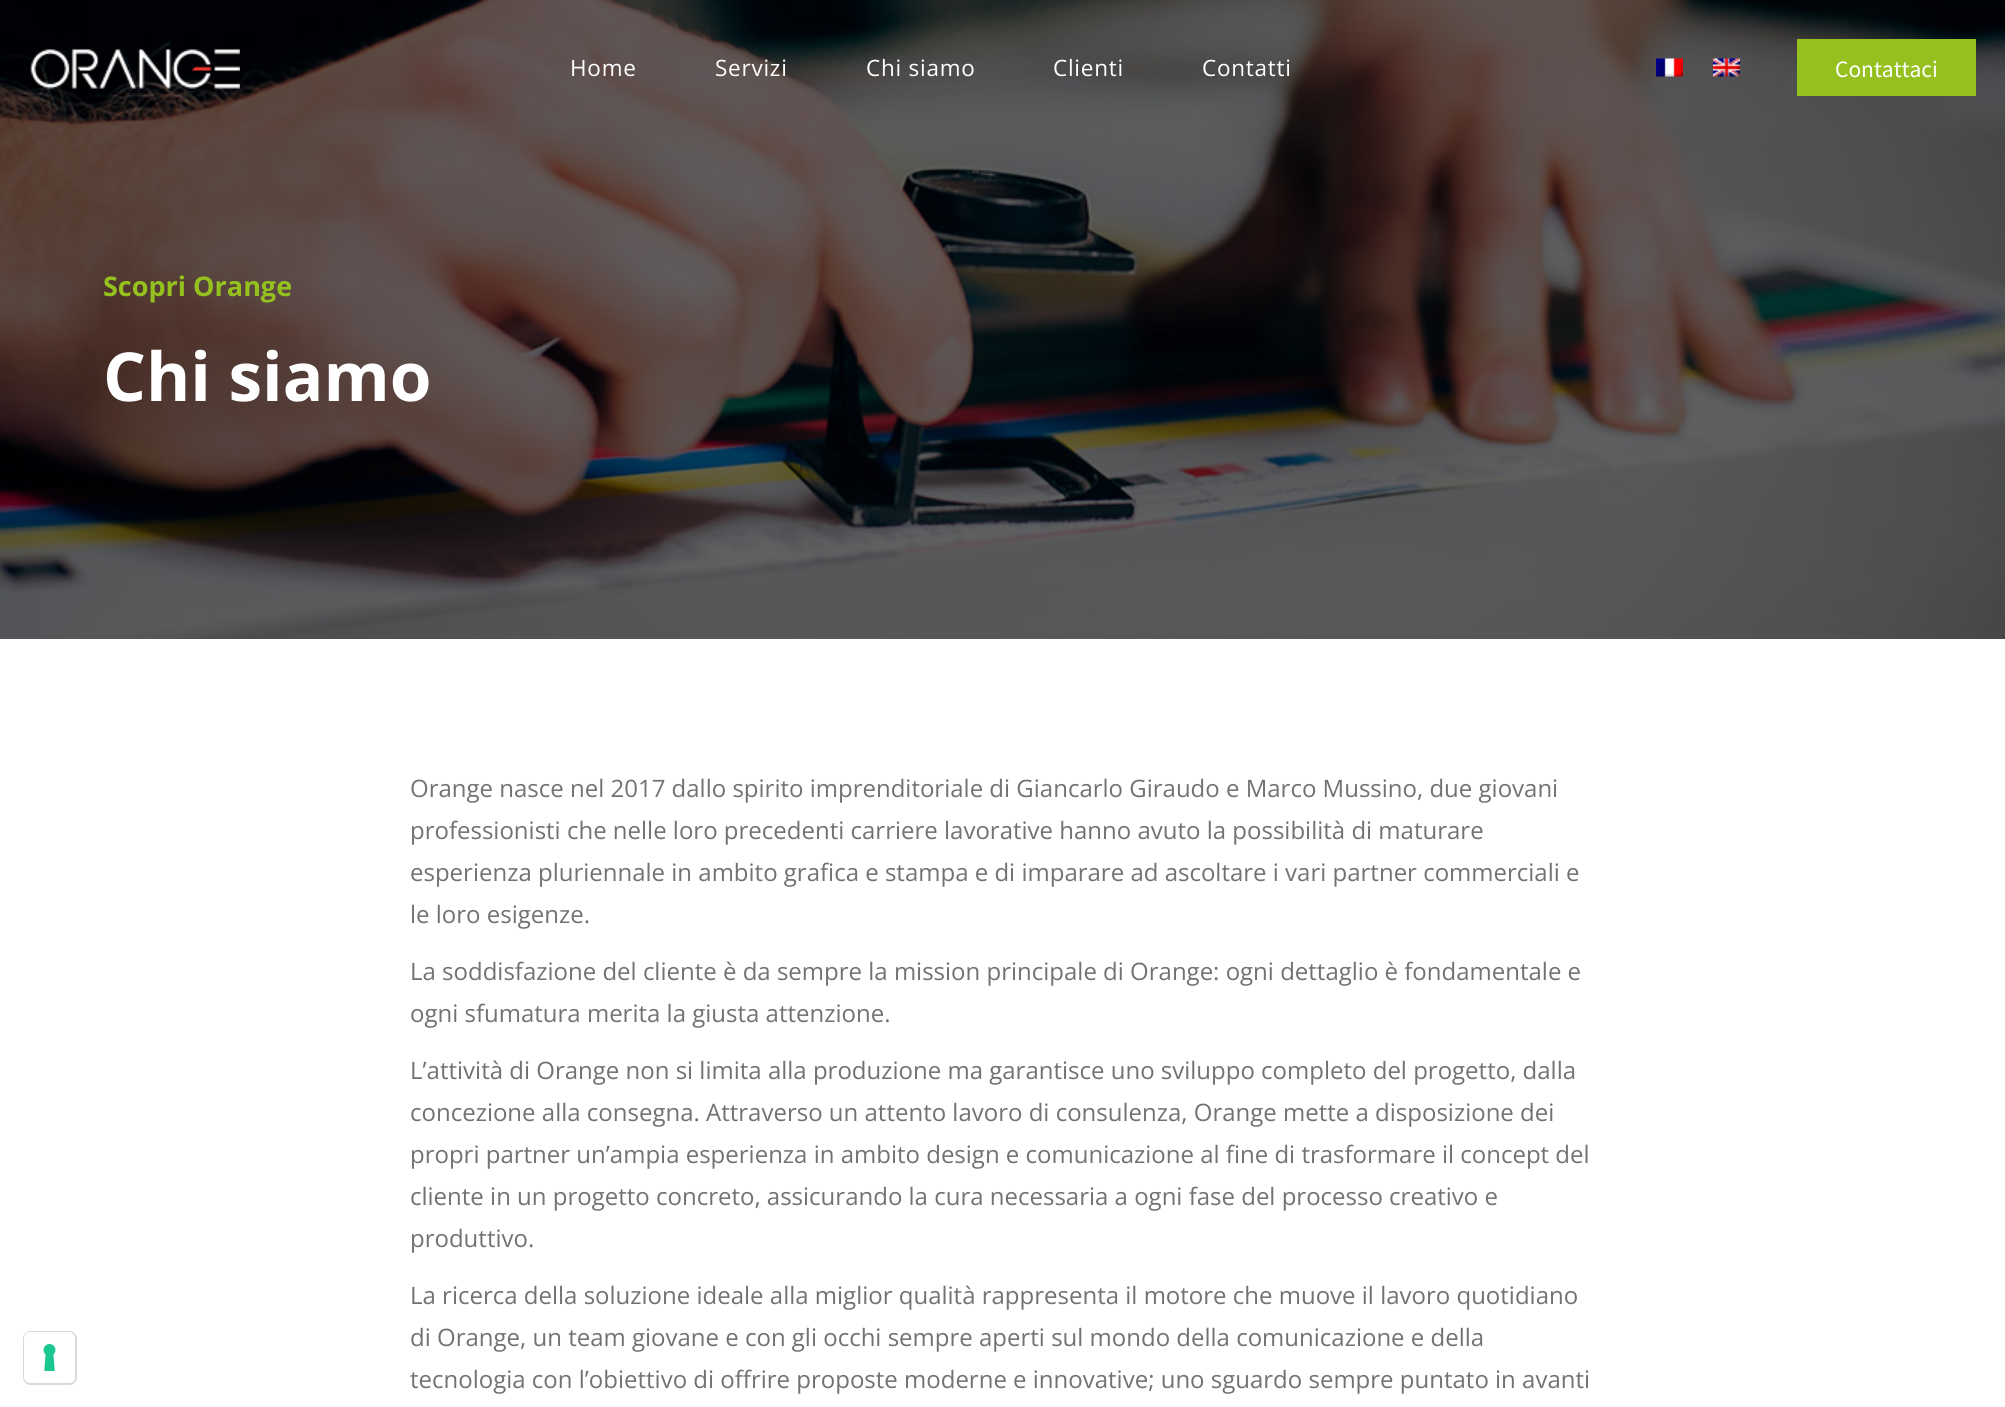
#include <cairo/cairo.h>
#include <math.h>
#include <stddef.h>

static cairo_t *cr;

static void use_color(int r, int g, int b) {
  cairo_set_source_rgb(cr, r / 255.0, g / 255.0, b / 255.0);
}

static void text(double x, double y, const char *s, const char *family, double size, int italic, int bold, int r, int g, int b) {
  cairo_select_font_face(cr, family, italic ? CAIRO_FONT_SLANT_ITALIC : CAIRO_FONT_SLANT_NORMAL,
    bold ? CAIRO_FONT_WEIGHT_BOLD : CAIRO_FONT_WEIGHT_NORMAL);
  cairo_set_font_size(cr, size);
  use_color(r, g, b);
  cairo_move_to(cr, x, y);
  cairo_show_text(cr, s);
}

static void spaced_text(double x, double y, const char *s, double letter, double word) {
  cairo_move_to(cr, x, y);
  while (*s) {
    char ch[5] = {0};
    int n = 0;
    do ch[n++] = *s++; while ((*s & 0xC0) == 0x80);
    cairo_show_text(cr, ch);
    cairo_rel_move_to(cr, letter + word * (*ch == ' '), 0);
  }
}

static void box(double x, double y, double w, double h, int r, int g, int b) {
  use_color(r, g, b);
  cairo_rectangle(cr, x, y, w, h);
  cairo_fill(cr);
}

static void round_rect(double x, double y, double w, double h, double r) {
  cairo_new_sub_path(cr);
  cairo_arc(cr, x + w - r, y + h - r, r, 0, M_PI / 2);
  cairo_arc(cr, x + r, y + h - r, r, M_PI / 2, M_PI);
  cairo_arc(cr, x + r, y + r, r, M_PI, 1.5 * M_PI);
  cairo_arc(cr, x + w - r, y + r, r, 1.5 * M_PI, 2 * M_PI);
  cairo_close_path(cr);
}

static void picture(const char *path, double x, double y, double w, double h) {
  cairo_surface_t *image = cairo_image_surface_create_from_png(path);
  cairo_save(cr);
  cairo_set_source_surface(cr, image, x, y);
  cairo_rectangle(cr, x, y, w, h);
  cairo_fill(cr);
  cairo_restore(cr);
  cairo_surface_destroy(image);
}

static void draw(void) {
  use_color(255, 255, 255);
  cairo_paint(cr);
  round_rect(24, 1332, 52, 52, 7);
  use_color(217, 217, 217);
  cairo_stroke(cr);
  use_color(255, 255, 255);
  round_rect(24, 1332, 51, 51, 6);
  cairo_fill(cr);
  picture("img_01.png", 43, 1344, 13, 27);
  picture("img_05.png", 0, 0, 2005, 639);
  picture("img_02.png", 30, 48, 210, 41);
  picture("img_03.png", 1656, 58, 27, 19);
  picture("img_04.png", 1713, 58, 27, 19);
  box(1797, 39, 179, 57, 149, 193, 31);
  cairo_select_font_face(cr, "Open Sans", CAIRO_FONT_SLANT_NORMAL, CAIRO_FONT_WEIGHT_NORMAL);
  cairo_set_font_size(cr, 22.5);
  use_color(255, 255, 255);
  spaced_text(570, 76, "Home", 0.75, 0);
  spaced_text(715, 76, "Servizi", 0.75, 0);
  spaced_text(866, 76, "Chi siamo", 0.75, 0);
  spaced_text(1053, 76, "Clienti", 0.75, 0);
  spaced_text(1202, 76, "Contatti", 0.75, 0);
  text(1835, 77, "Contattaci", "Noto Sans JP", 21, 0, 0, 255, 255, 255);
  text(103, 296, "Scopri Orange", "Open Sans", 27, 0, 1, 149, 193, 31);
  text(103, 401, "Chi siamo", "Open Sans", 67.5, 0, 1, 255, 255, 255);
  text(410, 797, "Orange nasce nel 2017 dallo spirito imprenditoriale di Giancarlo Giraudo e Marco Mussino, due giovani", "Open Sans", 24, 0, 0, 114, 114, 114);
  text(410, 839, "professionisti che nelle loro precedenti carriere lavorative hanno avuto la possibilità di maturare", "Open Sans", 24, 0, 0, 114, 114, 114);
  text(410, 881, "esperienza pluriennale in ambito grafica e stampa e di imparare ad ascoltare i vari partner commerciali e", "Open Sans", 24, 0, 0, 114, 114, 114);
  text(410, 923, "le loro esigenze.", "Open Sans", 24, 0, 0, 114, 114, 114);
  text(410, 980, "La soddisfazione del cliente è da sempre la mission principale di Orange: ogni dettaglio è fondamentale e", "Open Sans", 24, 0, 0, 114, 114, 114);
  text(410, 1022, "ogni sfumatura merita la giusta attenzione.", "Open Sans", 24, 0, 0, 114, 114, 114);
  text(410, 1079, "L’attività di Orange non si limita alla produzione ma garantisce uno sviluppo completo del progetto, dalla", "Open Sans", 24, 0, 0, 114, 114, 114);
  text(410, 1121, "concezione alla consegna. Attraverso un attento lavoro di consulenza, Orange mette a disposizione dei", "Open Sans", 24, 0, 0, 114, 114, 114);
  text(410, 1163, "propri partner un’ampia esperienza in ambito design e comunicazione al fine di trasformare il concept del", "Open Sans", 24, 0, 0, 114, 114, 114);
  text(410, 1205, "cliente in un progetto concreto, assicurando la cura necessaria a ogni fase del processo creativo e", "Open Sans", 24, 0, 0, 114, 114, 114);
  text(410, 1247, "produttivo.", "Open Sans", 24, 0, 0, 114, 114, 114);
  text(410, 1304, "La ricerca della soluzione ideale alla miglior qualità rappresenta il motore che muove il lavoro quotidiano", "Open Sans", 24, 0, 0, 114, 114, 114);
  text(410, 1346, "di Orange, un team giovane e con gli occhi sempre aperti sul mondo della comunicazione e della", "Open Sans", 24, 0, 0, 114, 114, 114);
  text(410, 1388, "tecnologia con l’obiettivo di offrire proposte moderne e innovative; uno sguardo sempre puntato in avanti", "Open Sans", 24, 0, 0, 114, 114, 114);
}

int main(void) {
  cairo_surface_t *surface = cairo_image_surface_create(CAIRO_FORMAT_RGB24, 2005, 1407);
  cr = cairo_create(surface);
  cairo_font_options_t *options = cairo_font_options_create();
  cairo_font_options_set_hint_metrics(options, CAIRO_HINT_METRICS_OFF);
  cairo_font_options_set_hint_style(options, CAIRO_HINT_STYLE_NONE);
  cairo_set_font_options(cr, options);
  cairo_set_miter_limit(cr, 4);
  draw();
  cairo_surface_write_to_png(surface, "out.png");
  cairo_font_options_destroy(options);
  cairo_destroy(cr);
  cairo_surface_destroy(surface);
  return 0;
}
